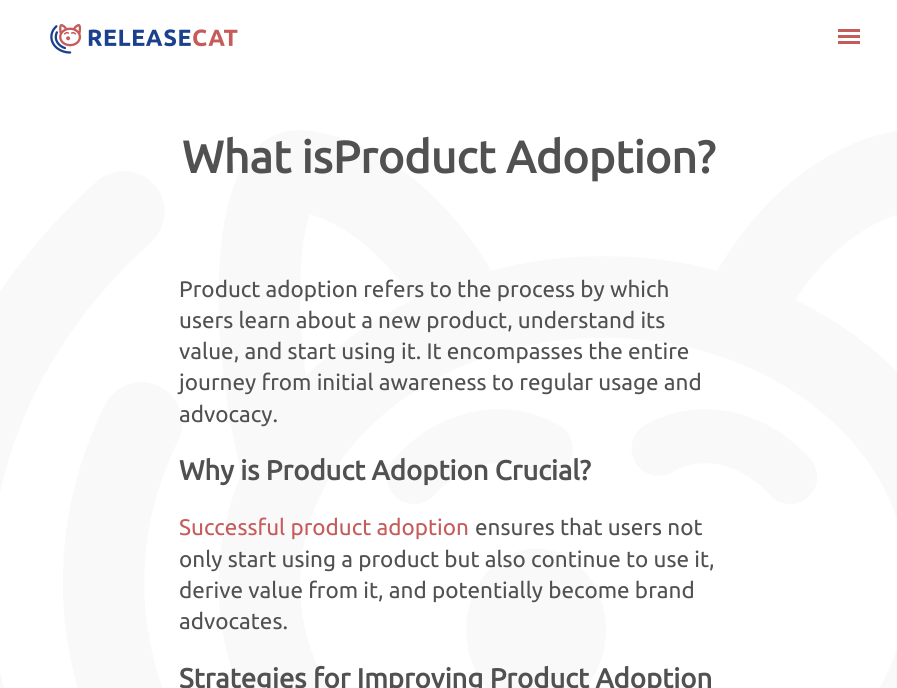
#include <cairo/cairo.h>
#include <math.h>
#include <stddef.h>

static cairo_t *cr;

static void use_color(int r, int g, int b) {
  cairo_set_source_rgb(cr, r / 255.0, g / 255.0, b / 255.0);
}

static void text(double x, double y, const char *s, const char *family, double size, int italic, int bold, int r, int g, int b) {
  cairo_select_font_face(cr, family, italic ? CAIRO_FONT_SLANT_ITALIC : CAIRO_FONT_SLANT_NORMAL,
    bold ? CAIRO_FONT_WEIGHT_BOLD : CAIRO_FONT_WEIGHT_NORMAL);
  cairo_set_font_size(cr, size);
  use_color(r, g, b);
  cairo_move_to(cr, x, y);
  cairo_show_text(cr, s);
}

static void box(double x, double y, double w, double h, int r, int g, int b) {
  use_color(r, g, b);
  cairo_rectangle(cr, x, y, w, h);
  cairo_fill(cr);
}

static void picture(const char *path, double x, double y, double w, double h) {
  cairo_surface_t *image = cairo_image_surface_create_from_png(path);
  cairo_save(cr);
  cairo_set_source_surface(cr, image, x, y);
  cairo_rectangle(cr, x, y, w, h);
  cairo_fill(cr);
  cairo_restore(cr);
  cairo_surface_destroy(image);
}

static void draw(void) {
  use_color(255, 255, 255);
  cairo_paint(cr);
  picture("img_01.png", 50, 24, 188, 30);
  box(838, 35, 22, 3, 197, 91, 91);
  box(838, 29, 22, 3, 197, 91, 91);
  box(838, 41, 22, 3, 197, 91, 91);
  picture("img_02.png", 0, 130, 897, 558);
  text(182, 173, "What isProduct Adoption?", "Ubuntu", 45, 0, 1, 81, 81, 81);
  text(179, 297, "Product adoption refers to the process by which", "Ubuntu", 22.5, 0, 0, 81, 81, 81);
  text(179, 328, "users learn about a new product, understand its", "Ubuntu", 22.5, 0, 0, 81, 81, 81);
  text(179, 359, "value, and start using it. It encompasses the entire", "Ubuntu", 22.5, 0, 0, 81, 81, 81);
  text(179, 390, "journey from initial awareness to regular usage and", "Ubuntu", 22.5, 0, 0, 81, 81, 81);
  text(179, 422, "advocacy.", "Ubuntu", 22.5, 0, 0, 81, 81, 81);
  text(179, 480, "Why is Product Adoption Crucial?", "Ubuntu", 27.5, 0, 1, 81, 81, 81);
  text(179, 535, "Successful product adoption", "Ubuntu", 22.5, 0, 0, 197, 91, 91);
  text(475, 535, "ensures that users not", "Ubuntu", 22.5, 0, 0, 81, 81, 81);
  text(179, 567, "only start using a product but also continue to use it,", "Ubuntu", 22.5, 0, 0, 81, 81, 81);
  text(179, 598, "derive value from it, and potentially become brand", "Ubuntu", 22.5, 0, 0, 81, 81, 81);
  text(179, 629, "advocates.", "Ubuntu", 22.5, 0, 0, 81, 81, 81);
  text(179, 688, "Strategies for Improving Product Adoption", "Ubuntu", 27.5, 0, 1, 81, 81, 81);
}

int main(void) {
  cairo_surface_t *surface = cairo_image_surface_create(CAIRO_FORMAT_RGB24, 897, 688);
  cr = cairo_create(surface);
  cairo_font_options_t *options = cairo_font_options_create();
  cairo_font_options_set_hint_metrics(options, CAIRO_HINT_METRICS_OFF);
  cairo_font_options_set_hint_style(options, CAIRO_HINT_STYLE_NONE);
  cairo_set_font_options(cr, options);
  cairo_set_miter_limit(cr, 4);
  draw();
  cairo_surface_write_to_png(surface, "out.png");
  cairo_font_options_destroy(options);
  cairo_destroy(cr);
  cairo_surface_destroy(surface);
  return 0;
}
